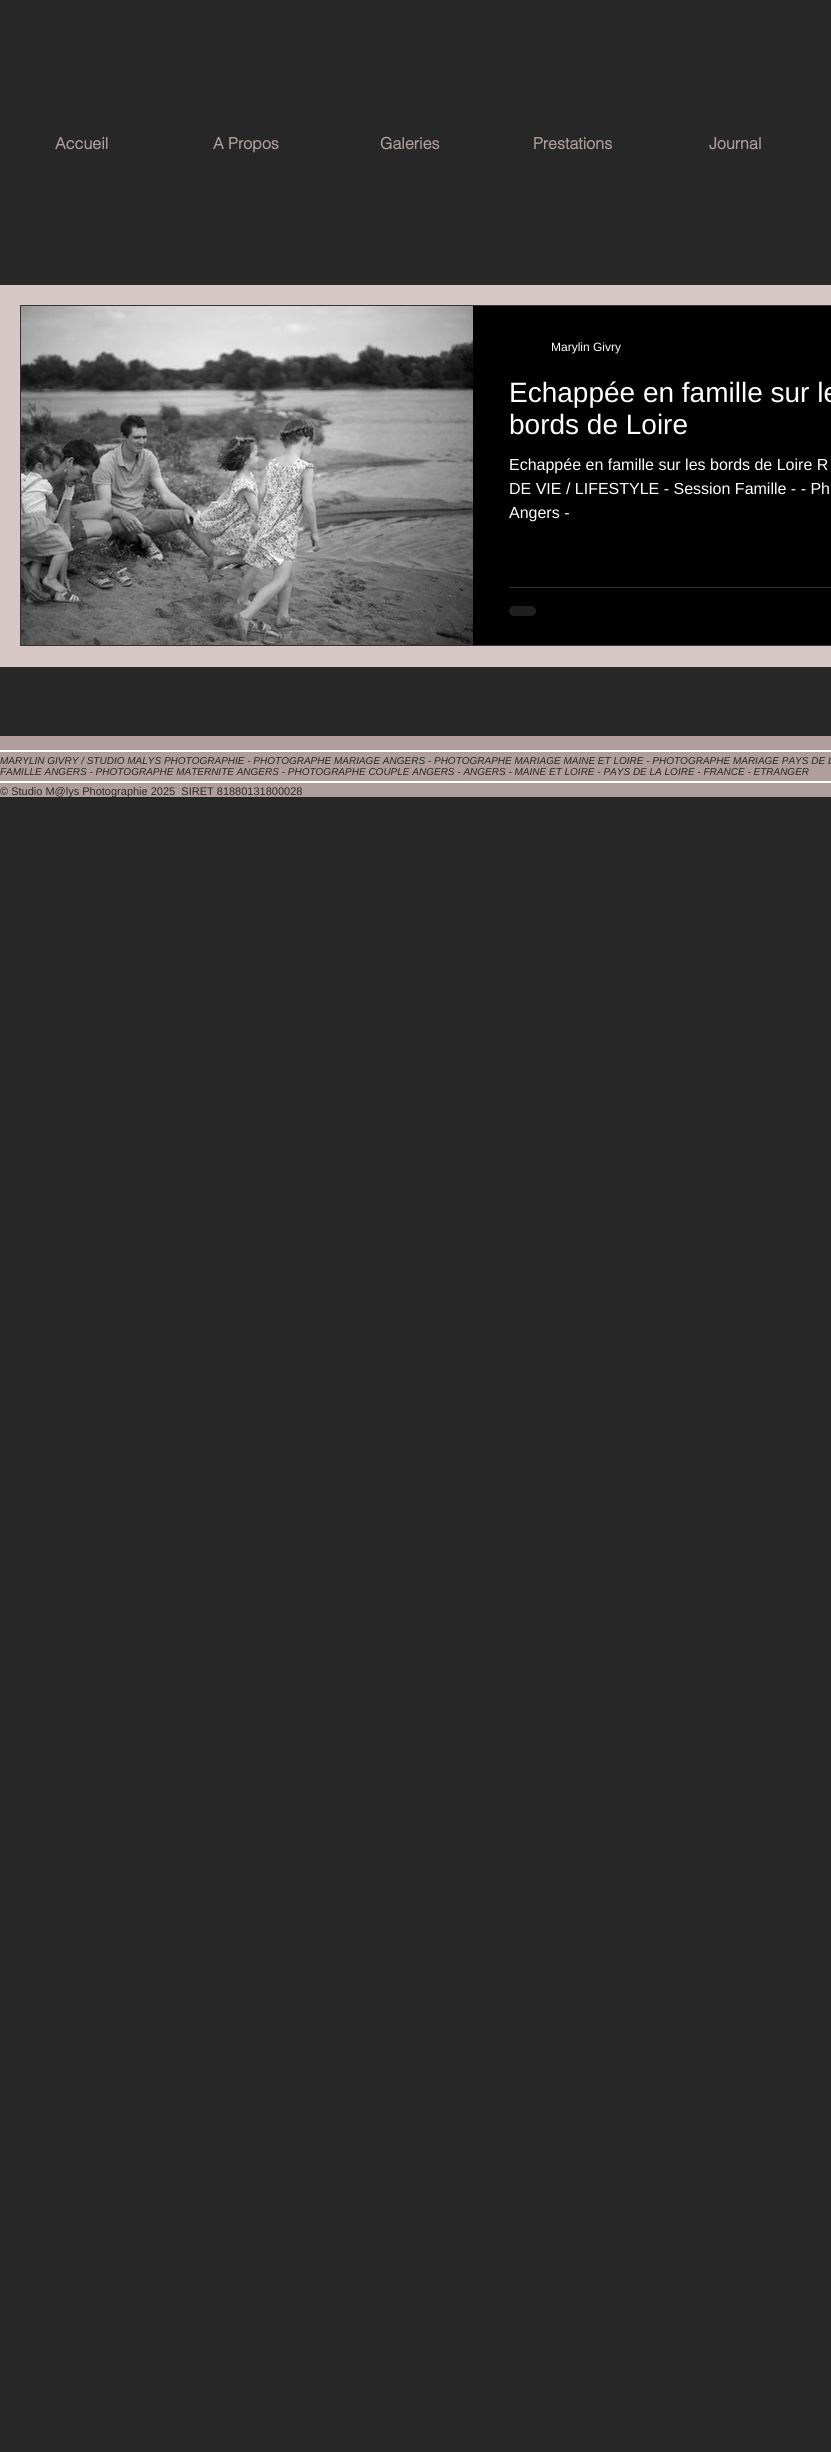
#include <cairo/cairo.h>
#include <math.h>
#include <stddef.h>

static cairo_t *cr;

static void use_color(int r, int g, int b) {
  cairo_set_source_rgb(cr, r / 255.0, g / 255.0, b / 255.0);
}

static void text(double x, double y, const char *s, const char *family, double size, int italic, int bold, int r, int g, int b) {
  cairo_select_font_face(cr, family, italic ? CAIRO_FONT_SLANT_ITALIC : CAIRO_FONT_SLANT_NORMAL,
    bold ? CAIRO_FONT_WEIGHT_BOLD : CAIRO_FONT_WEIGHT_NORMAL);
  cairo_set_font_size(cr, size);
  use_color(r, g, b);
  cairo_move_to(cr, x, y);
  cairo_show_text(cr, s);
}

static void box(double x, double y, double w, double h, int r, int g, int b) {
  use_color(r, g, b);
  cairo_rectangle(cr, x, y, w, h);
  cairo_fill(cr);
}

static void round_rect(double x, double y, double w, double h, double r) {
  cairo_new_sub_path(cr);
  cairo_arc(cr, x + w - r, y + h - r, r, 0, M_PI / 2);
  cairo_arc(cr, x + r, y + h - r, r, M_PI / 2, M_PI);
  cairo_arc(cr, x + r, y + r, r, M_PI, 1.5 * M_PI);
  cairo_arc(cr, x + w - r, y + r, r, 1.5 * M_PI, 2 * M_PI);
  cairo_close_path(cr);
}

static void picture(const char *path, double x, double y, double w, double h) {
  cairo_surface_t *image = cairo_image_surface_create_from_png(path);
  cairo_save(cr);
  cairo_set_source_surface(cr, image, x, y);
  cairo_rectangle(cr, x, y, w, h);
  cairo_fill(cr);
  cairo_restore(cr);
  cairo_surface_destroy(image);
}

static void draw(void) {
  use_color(39, 39, 39);
  cairo_paint(cr);
  box(0, 285, 831, 382, 216, 199, 199);
  cairo_rectangle(cr, 20.5, 305.5, 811, 340);
  use_color(51, 51, 51);
  cairo_set_line_width(cr, 1);
  cairo_stroke(cr);
  picture("img_01.png", 21, 306, 452, 339);
  box(473, 306, 358, 339, 0, 0, 0);
  box(509, 587, 322, 1, 51, 51, 51);
  use_color(31, 31, 31);
  round_rect(509, 606, 27, 10, 5);
  cairo_fill(cr);
  box(0, 736, 831, 61, 176, 157, 157);
  box(0, 750, 831, 2, 255, 255, 255);
  box(0, 781, 831, 2, 255, 255, 255);
  text(55, 149, "Accueil", "helvetica", 16, 0, 1, 176, 157, 157);
  text(213, 149, "A Propos", "helvetica", 16, 0, 1, 176, 157, 157);
  text(380, 149, "Galeries", "helvetica", 16, 0, 1, 176, 157, 157);
  text(533, 149, "Prestations", "helvetica", 16, 0, 1, 176, 157, 157);
  text(709, 149, "Journal", "helvetica", 16, 0, 1, 176, 157, 157);
  text(551, 351, "Marylin Givry", "Liberation Sans", 12, 0, 0, 255, 255, 255);
  text(509, 402, "Echappée en famille sur le", "Liberation Sans", 28, 0, 0, 255, 255, 255);
  text(509, 434, "bords de Loire", "Liberation Sans", 28, 0, 0, 255, 255, 255);
  text(509, 470, "Echappée en famille sur les bords de Loire R", "Liberation Sans", 16, 0, 0, 255, 255, 255);
  text(509, 494, "DE VIE / LIFESTYLE - Session Famille - - Ph", "Liberation Sans", 16, 0, 0, 255, 255, 255);
  text(509, 518, "Angers -", "Liberation Sans", 16, 0, 0, 255, 255, 255);
  text(0, 764, "MARYLIN GIVRY / STUDIO MALYS PHOTOGRAPHIE - PHOTOGRAPHE MARIAGE ANGERS - PHOTOGRAPHE MARIAGE MAINE ET LOIRE - PHOTOGRAPHE MARIAGE PAYS DE L", "Liberation Sans", 10, 1, 0, 39, 39, 39);
  text(0, 775, "FAMILLE ANGERS - PHOTOGRAPHE MATERNITE ANGERS - PHOTOGRAPHE COUPLE ANGERS - ANGERS - MAINE ET LOIRE - PAYS DE LA LOIRE - FRANCE - ETRANGER", "Liberation Sans", 10, 1, 0, 39, 39, 39);
  text(0, 795, "© Studio M@lys Photographie 2025  SIRET 81880131800028", "Liberation Sans", 11, 0, 0, 39, 39, 39);
}

int main(void) {
  cairo_surface_t *surface = cairo_image_surface_create(CAIRO_FORMAT_RGB24, 831, 2452);
  cr = cairo_create(surface);
  cairo_font_options_t *options = cairo_font_options_create();
  cairo_font_options_set_hint_metrics(options, CAIRO_HINT_METRICS_OFF);
  cairo_font_options_set_hint_style(options, CAIRO_HINT_STYLE_NONE);
  cairo_set_font_options(cr, options);
  cairo_set_miter_limit(cr, 4);
  draw();
  cairo_surface_write_to_png(surface, "out.png");
  cairo_font_options_destroy(options);
  cairo_destroy(cr);
  cairo_surface_destroy(surface);
  return 0;
}
